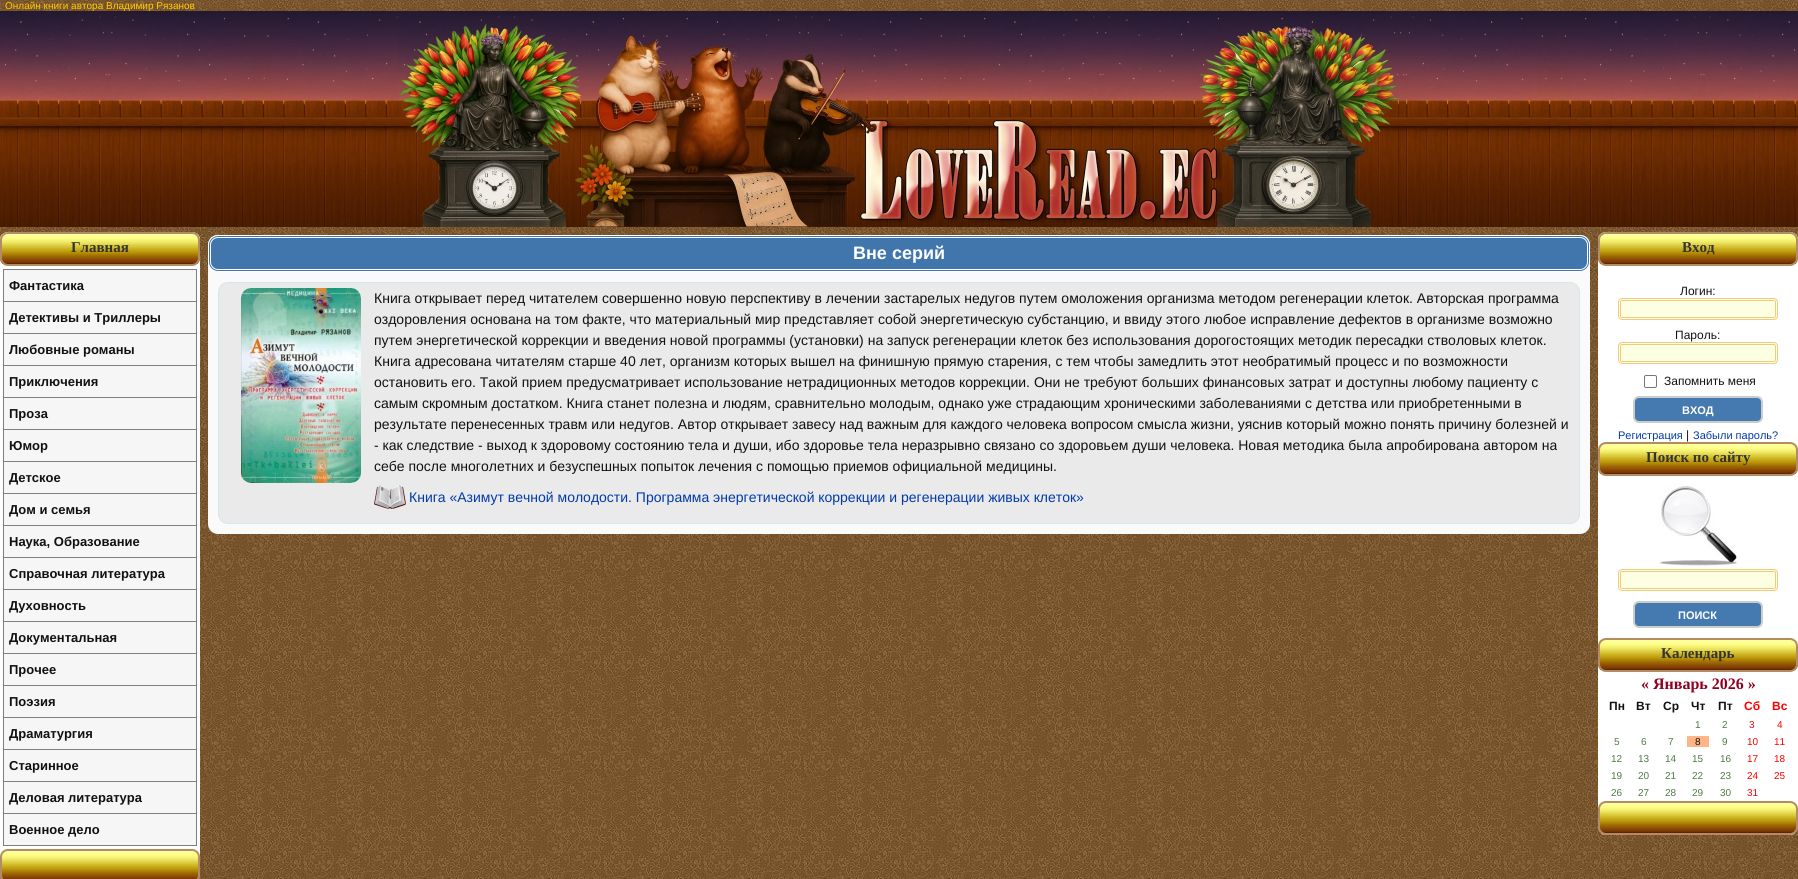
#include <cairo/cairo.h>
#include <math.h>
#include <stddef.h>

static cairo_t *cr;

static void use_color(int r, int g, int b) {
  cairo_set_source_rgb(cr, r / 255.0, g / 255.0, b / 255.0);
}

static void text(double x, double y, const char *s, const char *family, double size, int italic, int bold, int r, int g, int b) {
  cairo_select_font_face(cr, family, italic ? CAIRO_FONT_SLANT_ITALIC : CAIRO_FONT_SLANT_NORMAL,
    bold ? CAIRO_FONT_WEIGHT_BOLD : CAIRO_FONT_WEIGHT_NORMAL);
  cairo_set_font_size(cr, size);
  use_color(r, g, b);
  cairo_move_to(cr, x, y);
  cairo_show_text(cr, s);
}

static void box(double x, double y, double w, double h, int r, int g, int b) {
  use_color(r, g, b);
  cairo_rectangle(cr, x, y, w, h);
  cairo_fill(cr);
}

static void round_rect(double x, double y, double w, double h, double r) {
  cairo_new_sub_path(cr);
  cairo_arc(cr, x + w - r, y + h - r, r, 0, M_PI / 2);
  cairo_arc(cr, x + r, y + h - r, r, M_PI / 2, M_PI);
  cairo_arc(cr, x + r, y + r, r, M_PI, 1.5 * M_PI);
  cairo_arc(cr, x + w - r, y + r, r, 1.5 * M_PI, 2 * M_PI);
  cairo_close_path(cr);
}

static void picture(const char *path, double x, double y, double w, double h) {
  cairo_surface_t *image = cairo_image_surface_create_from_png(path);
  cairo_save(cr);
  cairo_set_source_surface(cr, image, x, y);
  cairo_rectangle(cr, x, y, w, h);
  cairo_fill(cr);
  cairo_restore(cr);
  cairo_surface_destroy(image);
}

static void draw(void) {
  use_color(255, 255, 255);
  cairo_paint(cr);
  picture("img_01.png", 0, 0, 1798, 879);
  use_color(255, 255, 255);
  round_rect(0, 232, 200, 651, 8);
  cairo_fill(cr);
  picture("img_04.png", 0, 234, 200, 30);
  round_rect(1, 233, 198, 32, 7);
  use_color(180, 140, 100);
  cairo_stroke(cr);
  box(3, 845, 194, 1, 128, 128, 128);
  box(3, 269, 194, 1, 128, 128, 128);
  box(196, 269, 1, 32, 128, 128, 128);
  box(3, 269, 1, 32, 128, 128, 128);
  box(4, 270, 192, 31, 246, 246, 246);
  box(3, 301, 194, 1, 128, 128, 128);
  box(196, 301, 1, 32, 128, 128, 128);
  box(3, 301, 1, 32, 128, 128, 128);
  box(4, 302, 192, 31, 246, 246, 246);
  box(3, 333, 194, 1, 128, 128, 128);
  box(196, 333, 1, 32, 128, 128, 128);
  box(3, 333, 1, 32, 128, 128, 128);
  box(4, 334, 192, 31, 246, 246, 246);
  box(3, 365, 194, 1, 128, 128, 128);
  box(196, 365, 1, 32, 128, 128, 128);
  box(3, 365, 1, 32, 128, 128, 128);
  box(4, 366, 192, 31, 246, 246, 246);
  box(3, 397, 194, 1, 128, 128, 128);
  box(196, 397, 1, 32, 128, 128, 128);
  box(3, 397, 1, 32, 128, 128, 128);
  box(4, 398, 192, 31, 246, 246, 246);
  box(3, 429, 194, 1, 128, 128, 128);
  box(196, 429, 1, 32, 128, 128, 128);
  box(3, 429, 1, 32, 128, 128, 128);
  box(4, 430, 192, 31, 246, 246, 246);
  box(3, 461, 194, 1, 128, 128, 128);
  box(196, 461, 1, 32, 128, 128, 128);
  box(3, 461, 1, 32, 128, 128, 128);
  box(4, 462, 192, 31, 246, 246, 246);
  box(3, 493, 194, 1, 128, 128, 128);
  box(196, 493, 1, 32, 128, 128, 128);
  box(3, 493, 1, 32, 128, 128, 128);
  box(4, 494, 192, 31, 246, 246, 246);
  box(3, 525, 194, 1, 128, 128, 128);
  box(196, 525, 1, 32, 128, 128, 128);
  box(3, 525, 1, 32, 128, 128, 128);
  box(4, 526, 192, 31, 246, 246, 246);
  box(3, 557, 194, 1, 128, 128, 128);
  box(196, 557, 1, 32, 128, 128, 128);
  box(3, 557, 1, 32, 128, 128, 128);
  box(4, 558, 192, 31, 246, 246, 246);
  box(3, 589, 194, 1, 128, 128, 128);
  box(196, 589, 1, 32, 128, 128, 128);
  box(3, 589, 1, 32, 128, 128, 128);
  box(4, 590, 192, 31, 246, 246, 246);
  box(3, 621, 194, 1, 128, 128, 128);
  box(196, 621, 1, 32, 128, 128, 128);
  box(3, 621, 1, 32, 128, 128, 128);
  box(4, 622, 192, 31, 246, 246, 246);
  box(3, 653, 194, 1, 128, 128, 128);
  box(196, 653, 1, 32, 128, 128, 128);
  box(3, 653, 1, 32, 128, 128, 128);
  box(4, 654, 192, 31, 246, 246, 246);
  box(3, 685, 194, 1, 128, 128, 128);
  box(196, 685, 1, 32, 128, 128, 128);
  box(3, 685, 1, 32, 128, 128, 128);
  box(4, 686, 192, 31, 246, 246, 246);
  box(3, 717, 194, 1, 128, 128, 128);
  box(196, 717, 1, 32, 128, 128, 128);
  box(3, 717, 1, 32, 128, 128, 128);
  box(4, 718, 192, 31, 246, 246, 246);
  box(3, 749, 194, 1, 128, 128, 128);
  box(196, 749, 1, 32, 128, 128, 128);
  box(3, 749, 1, 32, 128, 128, 128);
  box(4, 750, 192, 31, 246, 246, 246);
  box(3, 781, 194, 1, 128, 128, 128);
  box(196, 781, 1, 32, 128, 128, 128);
  box(3, 781, 1, 32, 128, 128, 128);
  box(4, 782, 192, 31, 246, 246, 246);
  box(3, 813, 194, 1, 128, 128, 128);
  box(196, 813, 1, 32, 128, 128, 128);
  box(3, 813, 1, 32, 128, 128, 128);
  box(4, 814, 192, 31, 246, 246, 246);
  picture("img_05.png", 0, 851, 200, 28);
  round_rect(1, 850, 198, 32, 7);
  use_color(180, 140, 100);
  cairo_stroke(cr);
  use_color(250, 250, 250);
  round_rect(208, 235, 1382, 299, 10);
  cairo_fill(cr);
  use_color(65, 118, 172);
  round_rect(208.5, 235.5, 1381, 36, 9.5);
  cairo_fill_preserve(cr);
  use_color(255, 255, 255);
  cairo_set_line_width(cr, 1);
  cairo_stroke(cr);
  round_rect(210.5, 237.5, 1377, 32, 7.5);
  cairo_stroke(cr);
  use_color(234, 234, 234);
  round_rect(218.5, 282.5, 1361, 241, 9.5);
  cairo_fill_preserve(cr);
  use_color(212, 231, 238);
  cairo_stroke(cr);
  picture("img_06.png", 241, 288, 120, 195);
  picture("img_07.png", 374, 485, 32, 24);
  use_color(255, 255, 255);
  round_rect(1598, 232, 200, 603, 8);
  cairo_fill(cr);
  picture("img_08.png", 1598, 234, 200, 30);
  round_rect(1599, 233, 198, 32, 7);
  use_color(180, 140, 100);
  cairo_set_line_width(cr, 2);
  cairo_stroke(cr);
  use_color(253, 255, 226);
  round_rect(1618.5, 298.5, 159, 21, 3.5);
  cairo_fill_preserve(cr);
  use_color(241, 202, 127);
  cairo_set_line_width(cr, 1);
  cairo_stroke(cr);
  round_rect(1620.5, 300.5, 155, 17, 1.5);
  cairo_stroke(cr);
  use_color(253, 255, 226);
  round_rect(1618.5, 342.5, 159, 21, 3.5);
  cairo_fill_preserve(cr);
  use_color(241, 202, 127);
  cairo_stroke(cr);
  round_rect(1620.5, 344.5, 155, 17, 1.5);
  cairo_stroke(cr);
  round_rect(1644.5, 375.5, 12, 12, 1.5);
  use_color(118, 118, 118);
  cairo_stroke(cr);
  use_color(69, 122, 176);
  round_rect(1634, 397, 128, 25, 5);
  cairo_fill_preserve(cr);
  use_color(204, 204, 204);
  cairo_set_line_width(cr, 2);
  cairo_stroke(cr);
  picture("img_09.png", 1598, 444, 200, 30);
  round_rect(1599, 443, 198, 32, 7);
  use_color(180, 140, 100);
  cairo_stroke(cr);
  picture("img_10.png", 1658, 486, 80, 80);
  use_color(253, 255, 226);
  round_rect(1618.5, 569.5, 159, 21, 3.5);
  cairo_fill_preserve(cr);
  use_color(241, 202, 127);
  cairo_set_line_width(cr, 1);
  cairo_stroke(cr);
  round_rect(1620.5, 571.5, 155, 17, 1.5);
  cairo_stroke(cr);
  use_color(69, 122, 176);
  round_rect(1634, 602, 128, 25, 5);
  cairo_fill_preserve(cr);
  use_color(204, 204, 204);
  cairo_set_line_width(cr, 2);
  cairo_stroke(cr);
  picture("img_09.png", 1598, 640, 200, 30);
  round_rect(1599, 639, 198, 32, 7);
  use_color(180, 140, 100);
  cairo_stroke(cr);
  box(1687, 736, 22, 11, 255, 181, 133);
  picture("img_11.png", 1598, 803, 200, 30);
  round_rect(1599, 802, 198, 32, 7);
  use_color(180, 140, 100);
  cairo_stroke(cr);
  text(5, 9, "Онлайн книги автора Владимир Рязанов", "Liberation Sans", 10, 0, 0, 255, 204, 0);
  picture("img_02.png", 0, 11, 1798, 216);
  picture("img_03.png", 399, 16, 1000, 211);
  text(71, 252, "Главная", "Liberation Serif", 15, 0, 1, 51, 51, 51);
  text(9, 290, "Фантастика", "Liberation Sans", 13, 0, 1, 17, 17, 17);
  text(9, 322, "Детективы и Триллеры", "Liberation Sans", 13, 0, 1, 17, 17, 17);
  text(9, 354, "Любовные романы", "Liberation Sans", 13, 0, 1, 17, 17, 17);
  text(9, 386, "Приключения", "Liberation Sans", 13, 0, 1, 17, 17, 17);
  text(9, 418, "Проза", "Liberation Sans", 13, 0, 1, 17, 17, 17);
  text(9, 450, "Юмор", "Liberation Sans", 13, 0, 1, 17, 17, 17);
  text(9, 482, "Детское", "Liberation Sans", 13, 0, 1, 17, 17, 17);
  text(9, 514, "Дом и семья", "Liberation Sans", 13, 0, 1, 17, 17, 17);
  text(9, 546, "Наука, Образование", "Liberation Sans", 13, 0, 1, 17, 17, 17);
  text(9, 578, "Справочная литература", "Liberation Sans", 13, 0, 1, 17, 17, 17);
  text(9, 610, "Духовность", "Liberation Sans", 13, 0, 1, 17, 17, 17);
  text(9, 642, "Документальная", "Liberation Sans", 13, 0, 1, 17, 17, 17);
  text(9, 674, "Прочее", "Liberation Sans", 13, 0, 1, 17, 17, 17);
  text(9, 706, "Поэзия", "Liberation Sans", 13, 0, 1, 17, 17, 17);
  text(9, 738, "Драматургия", "Liberation Sans", 13, 0, 1, 17, 17, 17);
  text(9, 770, "Старинное", "Liberation Sans", 13, 0, 1, 17, 17, 17);
  text(9, 802, "Деловая литература", "Liberation Sans", 13, 0, 1, 17, 17, 17);
  text(9, 834, "Военное дело", "Liberation Sans", 13, 0, 1, 17, 17, 17);
  text(853, 259, "Вне серий", "Liberation Sans", 18, 0, 1, 255, 255, 255);
  text(374, 303, "Книга открывает перед читателем совершенно новую перспективу в лечении застарелых недугов путем омоложения организма методом регенерации клеток. Авторская программа", "Liberation Sans", 14, 0, 0, 17, 17, 17);
  text(374, 324, "оздоровления основана на том факте, что материальный мир представляет собой энергетическую субстанцию, и ввиду этого любое исправление дефектов в организме возможно", "Liberation Sans", 14, 0, 0, 17, 17, 17);
  text(374, 345, "путем энергетической коррекции и введения новой программы (установки) на запуск регенерации клеток без использования дорогостоящих методик пересадки стволовых клеток.", "Liberation Sans", 14, 0, 0, 17, 17, 17);
  text(374, 366, "Книга адресована читателям старше 40 лет, организм которых вышел на финишную прямую старения, с тем чтобы замедлить этот необратимый процесс и по возможности", "Liberation Sans", 14, 0, 0, 17, 17, 17);
  text(374, 387, "остановить его. Такой прием предусматривает использование нетрадиционных методов коррекции. Они не требуют больших финансовых затрат и доступны любому пациенту с", "Liberation Sans", 14, 0, 0, 17, 17, 17);
  text(374, 408, "самым скромным достатком. Книга станет полезна и людям, сравнительно молодым, однако уже страдающим хроническими заболеваниями с детства или приобретенными в", "Liberation Sans", 14, 0, 0, 17, 17, 17);
  text(374, 429, "результате перенесенных травм или недугов. Автор открывает завесу над важным для каждого человека вопросом смысла жизни, уяснив который можно понять причину болезней и", "Liberation Sans", 14, 0, 0, 17, 17, 17);
  text(374, 450, "- как следствие - выход к здоровому состоянию тела и души, ибо здоровье тела неразрывно связано со здоровьем души человека. Новая методика была апробирована автором на", "Liberation Sans", 14, 0, 0, 17, 17, 17);
  text(374, 471, "себе после многолетних и безуспешных попыток лечения с помощью приемов официальной медицины.", "Liberation Sans", 14, 0, 0, 17, 17, 17);
  text(409, 502, "Книга «Азимут вечной молодости. Программа энергетической коррекции и регенерации живых клеток»", "Liberation Sans", 14, 0, 0, 0, 58, 172);
  text(1682, 252, "Вход", "Liberation Serif", 15, 0, 1, 51, 51, 51);
  text(1680, 295, "Логин:", "Liberation Sans", 12, 0, 0, 17, 17, 17);
  text(1675, 339, "Пароль:", "Liberation Sans", 12, 0, 0, 17, 17, 17);
  text(1664, 385, "Запомнить меня", "Liberation Sans", 12, 0, 0, 17, 17, 17);
  text(1682, 414, "ВХОД", "Liberation Sans", 11, 0, 1, 255, 255, 255);
  text(1618, 439, "Регистрация", "Liberation Sans", 11, 0, 0, 0, 58, 172);
  text(1686, 439, "|", "Liberation Sans", 12, 0, 0, 17, 17, 17);
  text(1693, 439, "Забыли пароль?", "Liberation Sans", 11, 0, 0, 0, 58, 172);
  text(1646, 462, "Поиск по сайту", "Liberation Serif", 15, 0, 1, 51, 51, 51);
  text(1678, 619, "ПОИСК", "Liberation Sans", 11, 0, 1, 255, 255, 255);
  text(1661, 658, "Календарь", "Liberation Serif", 15, 0, 1, 51, 51, 51);
  text(1641, 689, "« Январь 2026 »", "Liberation Serif", 16, 0, 1, 144, 0, 32);
  text(1609, 710, "Пн", "Liberation Sans", 12, 0, 1, 17, 17, 17);
  text(1636, 710, "Вт", "Liberation Sans", 12, 0, 1, 17, 17, 17);
  text(1663, 710, "Ср", "Liberation Sans", 12, 0, 1, 17, 17, 17);
  text(1691, 710, "Чт", "Liberation Sans", 12, 0, 1, 17, 17, 17);
  text(1718, 710, "Пт", "Liberation Sans", 12, 0, 1, 17, 17, 17);
  text(1744, 710, "Сб", "Liberation Sans", 12, 0, 1, 255, 0, 0);
  text(1772, 710, "Вс", "Liberation Sans", 12, 0, 1, 255, 0, 0);
  text(1695, 728, "1", "Liberation Sans", 10, 0, 0, 79, 121, 66);
  text(1722, 728, "2", "Liberation Sans", 10, 0, 0, 79, 121, 66);
  text(1749, 728, "3", "Liberation Sans", 10, 0, 0, 255, 0, 0);
  text(1777, 728, "4", "Liberation Sans", 10, 0, 0, 255, 0, 0);
  text(1614, 745, "5", "Liberation Sans", 10, 0, 0, 79, 121, 66);
  text(1641, 745, "6", "Liberation Sans", 10, 0, 0, 79, 121, 66);
  text(1668, 745, "7", "Liberation Sans", 10, 0, 0, 79, 121, 66);
  text(1695, 745, "8", "Liberation Sans", 10, 0, 0, 17, 17, 17);
  text(1722, 745, "9", "Liberation Sans", 10, 0, 0, 79, 121, 66);
  text(1747, 745, "10", "Liberation Sans", 10, 0, 0, 255, 0, 0);
  text(1774, 745, "11", "Liberation Sans", 10, 0, 0, 255, 0, 0);
  text(1611, 762, "12", "Liberation Sans", 10, 0, 0, 79, 121, 66);
  text(1638, 762, "13", "Liberation Sans", 10, 0, 0, 79, 121, 66);
  text(1665, 762, "14", "Liberation Sans", 10, 0, 0, 79, 121, 66);
  text(1692, 762, "15", "Liberation Sans", 10, 0, 0, 79, 121, 66);
  text(1720, 762, "16", "Liberation Sans", 10, 0, 0, 79, 121, 66);
  text(1747, 762, "17", "Liberation Sans", 10, 0, 0, 255, 0, 0);
  text(1774, 762, "18", "Liberation Sans", 10, 0, 0, 255, 0, 0);
  text(1611, 779, "19", "Liberation Sans", 10, 0, 0, 79, 121, 66);
  text(1638, 779, "20", "Liberation Sans", 10, 0, 0, 79, 121, 66);
  text(1665, 779, "21", "Liberation Sans", 10, 0, 0, 79, 121, 66);
  text(1692, 779, "22", "Liberation Sans", 10, 0, 0, 79, 121, 66);
  text(1720, 779, "23", "Liberation Sans", 10, 0, 0, 79, 121, 66);
  text(1747, 779, "24", "Liberation Sans", 10, 0, 0, 255, 0, 0);
  text(1774, 779, "25", "Liberation Sans", 10, 0, 0, 255, 0, 0);
  text(1611, 796, "26", "Liberation Sans", 10, 0, 0, 79, 121, 66);
  text(1638, 796, "27", "Liberation Sans", 10, 0, 0, 79, 121, 66);
  text(1665, 796, "28", "Liberation Sans", 10, 0, 0, 79, 121, 66);
  text(1692, 796, "29", "Liberation Sans", 10, 0, 0, 79, 121, 66);
  text(1720, 796, "30", "Liberation Sans", 10, 0, 0, 79, 121, 66);
  text(1747, 796, "31", "Liberation Sans", 10, 0, 0, 255, 0, 0);
}

int main(void) {
  cairo_surface_t *surface = cairo_image_surface_create(CAIRO_FORMAT_RGB24, 1798, 879);
  cr = cairo_create(surface);
  cairo_font_options_t *options = cairo_font_options_create();
  cairo_font_options_set_hint_metrics(options, CAIRO_HINT_METRICS_OFF);
  cairo_font_options_set_hint_style(options, CAIRO_HINT_STYLE_NONE);
  cairo_set_font_options(cr, options);
  cairo_set_miter_limit(cr, 4);
  draw();
  cairo_surface_write_to_png(surface, "out.png");
  cairo_font_options_destroy(options);
  cairo_destroy(cr);
  cairo_surface_destroy(surface);
  return 0;
}
